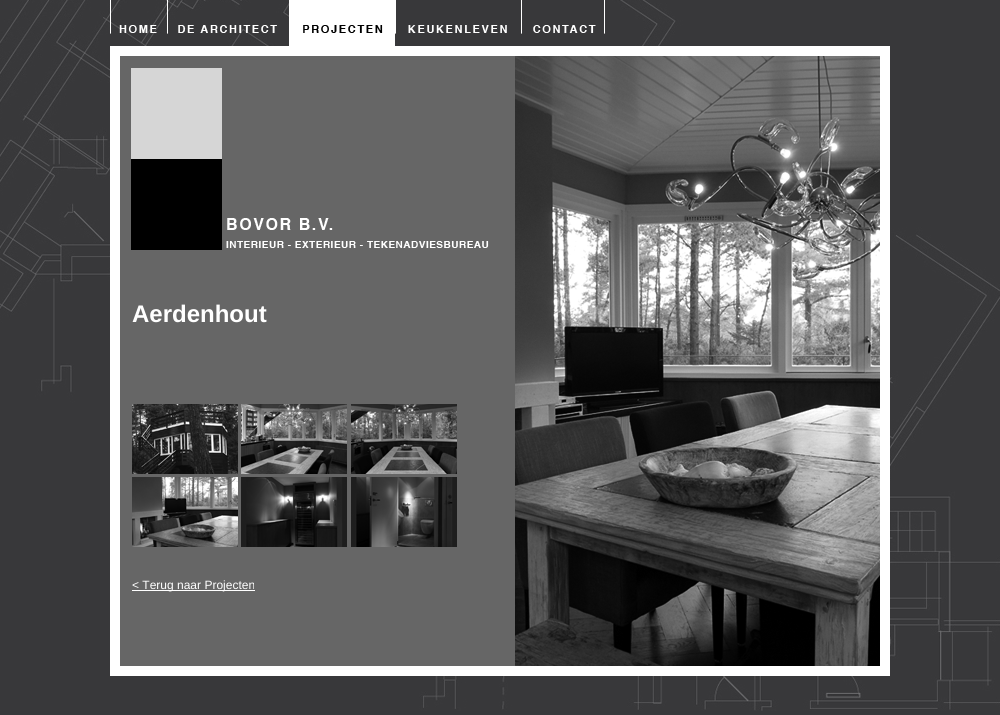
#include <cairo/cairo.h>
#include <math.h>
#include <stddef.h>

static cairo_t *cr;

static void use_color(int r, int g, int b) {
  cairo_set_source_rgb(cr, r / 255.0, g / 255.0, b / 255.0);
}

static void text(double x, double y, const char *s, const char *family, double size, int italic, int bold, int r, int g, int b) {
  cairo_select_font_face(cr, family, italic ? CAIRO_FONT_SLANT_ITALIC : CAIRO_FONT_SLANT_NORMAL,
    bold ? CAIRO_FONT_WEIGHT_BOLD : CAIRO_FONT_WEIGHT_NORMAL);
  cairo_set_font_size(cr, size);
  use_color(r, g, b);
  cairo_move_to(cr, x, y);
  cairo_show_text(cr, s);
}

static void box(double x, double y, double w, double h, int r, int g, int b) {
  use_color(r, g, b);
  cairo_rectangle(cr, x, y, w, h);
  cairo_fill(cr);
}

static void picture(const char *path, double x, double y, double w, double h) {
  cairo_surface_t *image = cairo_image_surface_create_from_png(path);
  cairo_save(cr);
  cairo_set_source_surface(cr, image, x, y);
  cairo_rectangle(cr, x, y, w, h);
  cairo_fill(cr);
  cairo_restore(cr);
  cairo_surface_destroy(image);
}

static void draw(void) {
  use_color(55, 56, 58);
  cairo_paint(cr);
  picture("img_01.png", 0, 0, 1000, 711);
  picture("img_02.png", 110, 0, 47, 34);
  picture("img_03.png", 167, 0, 110, 34);
  picture("img_04.png", 289, 0, 106, 46);
  picture("img_05.png", 395, 0, 112, 34);
  picture("img_06.png", 521, 0, 75, 34);
  picture("img_07.png", 604, 0, 1, 34);
  cairo_rectangle(cr, 115, 51, 770, 620);
  use_color(255, 255, 255);
  cairo_set_line_width(cr, 10);
  cairo_stroke(cr);
  box(120, 56, 395, 610, 102, 102, 102);
  picture("img_08.png", 131, 68, 358, 182);
  picture("img_09.png", 132, 404, 106, 70);
  picture("img_10.png", 241, 404, 106, 70);
  picture("img_11.png", 351, 404, 106, 70);
  picture("img_12.png", 132, 477, 106, 70);
  picture("img_13.png", 241, 477, 106, 70);
  picture("img_14.png", 351, 477, 106, 70);
  box(132, 590, 123, 1, 255, 255, 255);
  picture("img_15.png", 515, 56, 365, 610);
  text(132, 322, "Aerdenhout", "Liberation Sans", 24, 0, 1, 255, 255, 255);
  text(132, 589, "< Terug naar Projecten", "Liberation Sans", 12, 0, 0, 255, 255, 255);
}

int main(void) {
  cairo_surface_t *surface = cairo_image_surface_create(CAIRO_FORMAT_RGB24, 1000, 715);
  cr = cairo_create(surface);
  cairo_font_options_t *options = cairo_font_options_create();
  cairo_font_options_set_hint_metrics(options, CAIRO_HINT_METRICS_OFF);
  cairo_font_options_set_hint_style(options, CAIRO_HINT_STYLE_NONE);
  cairo_set_font_options(cr, options);
  cairo_set_miter_limit(cr, 4);
  draw();
  cairo_surface_write_to_png(surface, "out.png");
  cairo_font_options_destroy(options);
  cairo_destroy(cr);
  cairo_surface_destroy(surface);
  return 0;
}
